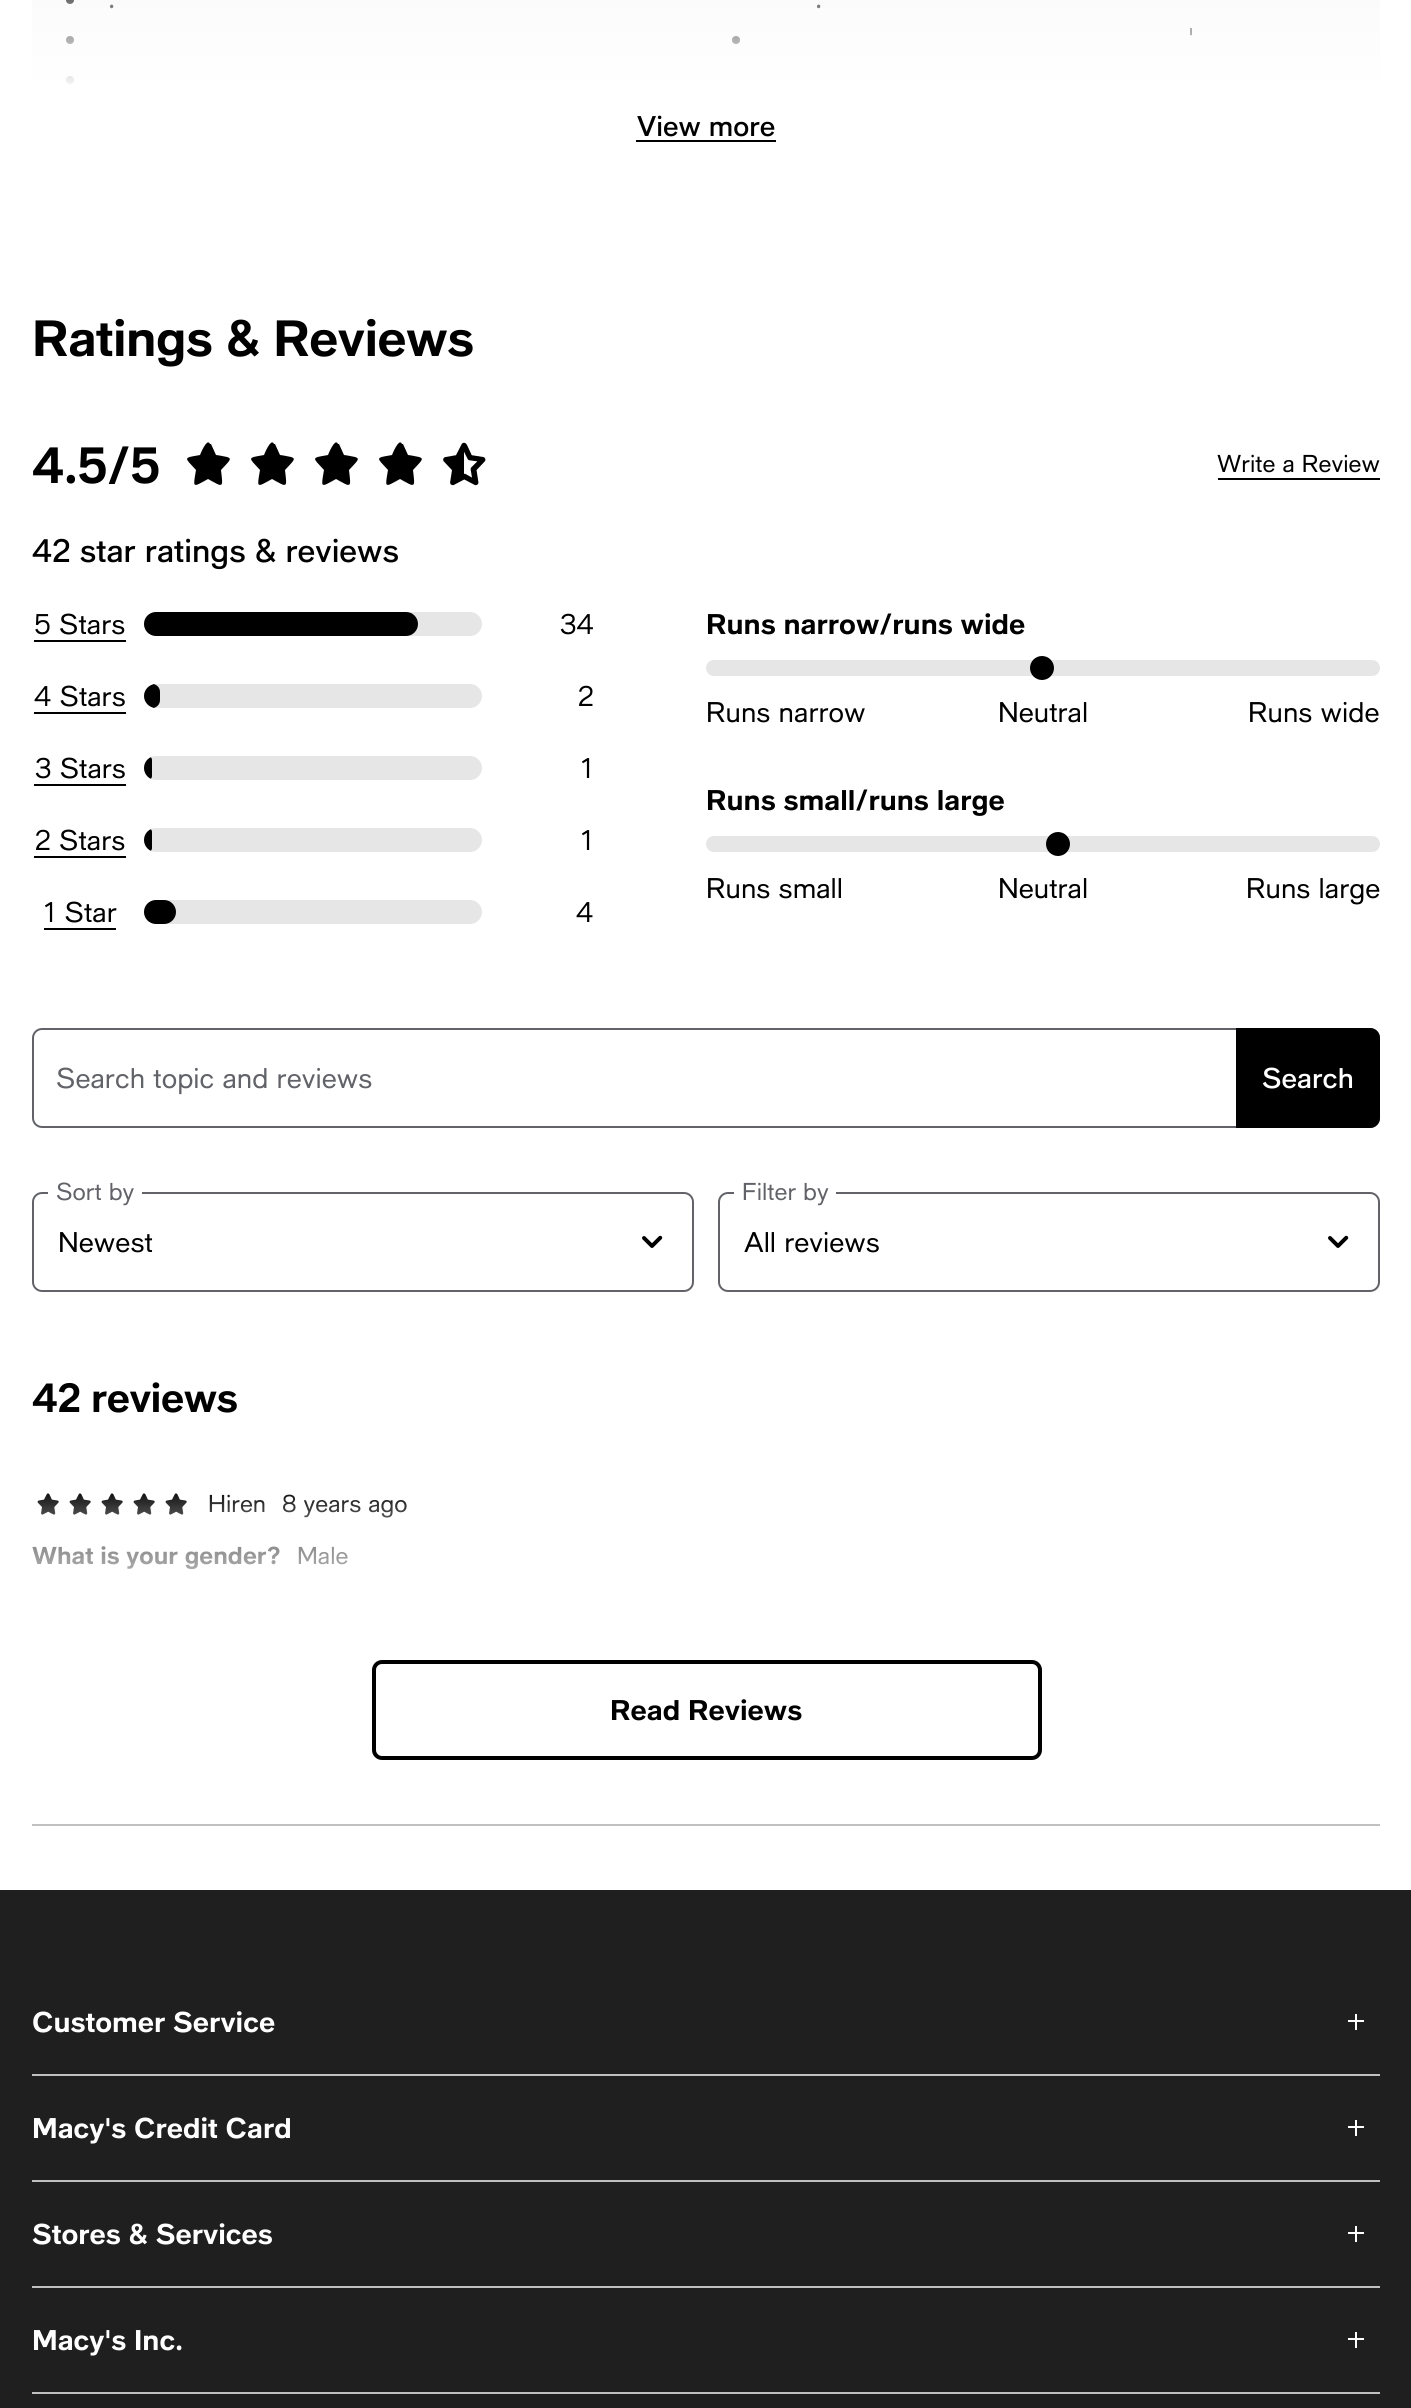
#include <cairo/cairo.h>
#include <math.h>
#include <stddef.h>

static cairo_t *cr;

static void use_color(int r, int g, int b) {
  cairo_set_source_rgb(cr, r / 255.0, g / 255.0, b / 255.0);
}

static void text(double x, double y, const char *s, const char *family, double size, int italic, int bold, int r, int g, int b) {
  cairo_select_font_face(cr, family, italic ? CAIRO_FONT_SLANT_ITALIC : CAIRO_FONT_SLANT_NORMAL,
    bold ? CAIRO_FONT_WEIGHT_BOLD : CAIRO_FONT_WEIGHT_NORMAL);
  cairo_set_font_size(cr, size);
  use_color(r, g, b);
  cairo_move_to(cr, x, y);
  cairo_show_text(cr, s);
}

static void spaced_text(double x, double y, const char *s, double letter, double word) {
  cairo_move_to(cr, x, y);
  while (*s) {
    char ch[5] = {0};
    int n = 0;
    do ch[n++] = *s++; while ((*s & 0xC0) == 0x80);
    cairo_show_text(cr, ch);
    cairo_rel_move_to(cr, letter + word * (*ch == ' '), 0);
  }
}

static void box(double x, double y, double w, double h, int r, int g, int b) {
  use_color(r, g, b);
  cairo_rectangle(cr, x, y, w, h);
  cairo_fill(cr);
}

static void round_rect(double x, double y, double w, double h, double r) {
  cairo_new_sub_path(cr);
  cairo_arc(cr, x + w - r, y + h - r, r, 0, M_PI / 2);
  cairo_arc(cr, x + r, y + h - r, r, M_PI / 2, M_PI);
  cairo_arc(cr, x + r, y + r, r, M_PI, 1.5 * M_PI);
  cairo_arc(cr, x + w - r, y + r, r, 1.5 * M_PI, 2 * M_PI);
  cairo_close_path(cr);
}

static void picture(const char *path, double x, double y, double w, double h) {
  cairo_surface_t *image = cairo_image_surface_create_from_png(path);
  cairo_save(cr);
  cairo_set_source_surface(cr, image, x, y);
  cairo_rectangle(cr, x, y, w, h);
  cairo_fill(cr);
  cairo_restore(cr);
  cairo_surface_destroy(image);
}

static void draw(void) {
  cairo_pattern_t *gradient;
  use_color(255, 255, 255);
  cairo_paint(cr);
  box(32, 0, 1348, 91, 248, 248, 248);
  use_color(0, 0, 0);
  cairo_arc(cr, 70, 0, 4, 0, 2 * M_PI);
  cairo_fill(cr);
  cairo_arc(cr, 70, 40, 4, 0, 2 * M_PI);
  cairo_fill(cr);
  cairo_arc(cr, 70, 80, 4, 0, 2 * M_PI);
  cairo_fill(cr);
  cairo_arc(cr, 736, 40, 4, 0, 2 * M_PI);
  cairo_fill(cr);
  box(636, 140, 140, 2, 0, 0, 0);
  box(32, 1824, 1348, 2, 192, 192, 192);
  use_color(0, 0, 0);
  cairo_set_fill_rule(cr, CAIRO_FILL_RULE_EVEN_ODD);
  cairo_new_path(cr);
  cairo_move_to(cr, 210, 444);
  cairo_curve_to(cr, 207, 437, 200, 455, 200, 455);
  cairo_curve_to(cr, 183, 458, 184, 457, 196, 470);
  cairo_curve_to(cr, 193, 488, 192, 488, 208, 479);
  cairo_curve_to(cr, 224, 488, 223, 488, 221, 470);
  cairo_curve_to(cr, 233, 457, 234, 458, 216, 455);
  cairo_line_to(cr, 211, 444);
  cairo_close_path(cr);
  cairo_fill(cr);
  cairo_new_path(cr);
  cairo_move_to(cr, 274, 444);
  cairo_curve_to(cr, 271, 437, 264, 455, 264, 455);
  cairo_curve_to(cr, 247, 458, 248, 457, 260, 470);
  cairo_curve_to(cr, 257, 488, 256, 488, 272, 479);
  cairo_curve_to(cr, 288, 488, 287, 488, 285, 470);
  cairo_curve_to(cr, 297, 457, 298, 458, 280, 455);
  cairo_line_to(cr, 275, 444);
  cairo_close_path(cr);
  cairo_fill(cr);
  cairo_new_path(cr);
  cairo_move_to(cr, 338, 444);
  cairo_curve_to(cr, 335, 437, 328, 455, 328, 455);
  cairo_curve_to(cr, 311, 458, 312, 457, 324, 470);
  cairo_curve_to(cr, 321, 488, 320, 488, 336, 479);
  cairo_curve_to(cr, 352, 488, 351, 488, 349, 470);
  cairo_curve_to(cr, 361, 457, 362, 458, 344, 455);
  cairo_line_to(cr, 339, 444);
  cairo_close_path(cr);
  cairo_fill(cr);
  cairo_new_path(cr);
  cairo_move_to(cr, 402, 444);
  cairo_curve_to(cr, 399, 437, 392, 455, 392, 455);
  cairo_curve_to(cr, 375, 458, 376, 457, 388, 470);
  cairo_curve_to(cr, 385, 488, 384, 488, 400, 479);
  cairo_curve_to(cr, 416, 488, 415, 488, 413, 470);
  cairo_curve_to(cr, 425, 457, 426, 458, 408, 455);
  cairo_line_to(cr, 403, 444);
  cairo_close_path(cr);
  cairo_fill(cr);
  picture("img_01.png", 443, 442, 43, 44);
  box(1218, 478, 162, 2, 0, 0, 0);
  box(34, 640, 92, 2, 0, 0, 0);
  use_color(230, 230, 230);
  round_rect(144, 612, 338, 24, 12);
  cairo_fill(cr);
  use_color(0, 0, 0);
  round_rect(144, 612, 274, 24, 12);
  cairo_fill(cr);
  box(34, 712, 92, 2, 0, 0, 0);
  use_color(230, 230, 230);
  round_rect(144, 684, 338, 24, 12);
  cairo_fill(cr);
  use_color(0, 0, 0);
  cairo_new_path(cr);
  cairo_move_to(cr, 156, 684);
  cairo_line_to(cr, 152, 684);
  cairo_curve_to(cr, 156.5, 684, 160, 687.5, 160, 692);
  cairo_line_to(cr, 160, 700);
  cairo_curve_to(cr, 160, 704.5, 156.5, 708, 152, 708);
  cairo_line_to(cr, 156, 708);
  cairo_curve_to(cr, 149.5, 708, 144, 702.5, 144, 696);
  cairo_curve_to(cr, 144, 689.5, 149.5, 684, 156, 684);
  cairo_close_path(cr);
  cairo_fill(cr);
  box(34, 784, 92, 2, 0, 0, 0);
  use_color(230, 230, 230);
  round_rect(144, 756, 338, 24, 12);
  cairo_fill(cr);
  cairo_save(cr);
  cairo_set_fill_rule(cr, CAIRO_FILL_RULE_WINDING);
  round_rect(144, 756, 338, 24, 12);
  cairo_clip(cr);
  use_color(0, 0, 0);
  round_rect(144, 756, 8, 24, 4);
  cairo_fill(cr);
  cairo_restore(cr);
  box(34, 856, 92, 2, 0, 0, 0);
  use_color(230, 230, 230);
  round_rect(144, 828, 338, 24, 12);
  cairo_fill(cr);
  cairo_save(cr);
  cairo_set_fill_rule(cr, CAIRO_FILL_RULE_WINDING);
  round_rect(144, 828, 338, 24, 12);
  cairo_clip(cr);
  use_color(0, 0, 0);
  round_rect(144, 828, 8, 24, 4);
  cairo_fill(cr);
  cairo_restore(cr);
  box(44, 928, 72, 2, 0, 0, 0);
  use_color(230, 230, 230);
  round_rect(144, 900, 338, 24, 12);
  cairo_fill(cr);
  use_color(0, 0, 0);
  round_rect(144, 900, 32, 24, 12);
  cairo_fill(cr);
  use_color(230, 230, 230);
  round_rect(706, 660, 674, 16, 8);
  cairo_fill(cr);
  use_color(0, 0, 0);
  cairo_arc(cr, 1042, 668, 12, 0, 2 * M_PI);
  cairo_fill(cr);
  use_color(230, 230, 230);
  round_rect(706, 836, 674, 16, 8);
  cairo_fill(cr);
  use_color(0, 0, 0);
  cairo_arc(cr, 1058, 844, 12, 0, 2 * M_PI);
  cairo_fill(cr);
  round_rect(33, 1029, 1346, 98, 9);
  use_color(98, 99, 105);
  cairo_stroke(cr);
  use_color(0, 0, 0);
  cairo_new_path(cr);
  cairo_move_to(cr, 1236, 1028);
  cairo_line_to(cr, 1370, 1028);
  cairo_curve_to(cr, 1375.5, 1028, 1380, 1032.5, 1380, 1038);
  cairo_line_to(cr, 1380, 1118);
  cairo_curve_to(cr, 1380, 1123.5, 1375.5, 1128, 1370, 1128);
  cairo_line_to(cr, 1236, 1128);
  cairo_close_path(cr);
  cairo_fill(cr);
  picture("img_02.png", 642, 1235, 21, 13);
  round_rect(33, 1193, 660, 98, 9);
  use_color(98, 99, 105);
  cairo_stroke(cr);
  box(48, 1192, 94, 2, 255, 255, 255);
  picture("img_02.png", 1328, 1235, 21, 13);
  round_rect(719, 1193, 660, 98, 9);
  use_color(98, 99, 105);
  cairo_stroke(cr);
  box(734, 1192, 102, 2, 255, 255, 255);
  picture("img_03.png", 37, 1493, 22, 22);
  picture("img_03.png", 69, 1493, 22, 22);
  picture("img_03.png", 101, 1493, 22, 22);
  picture("img_03.png", 133, 1493, 22, 22);
  picture("img_03.png", 165, 1493, 22, 22);
  round_rect(374, 1662, 666, 96, 8);
  use_color(0, 0, 0);
  cairo_set_line_width(cr, 4);
  cairo_stroke(cr);
  box(0, 1890, 1411, 518, 31, 31, 31);
  box(32, 2074, 1348, 2, 192, 192, 192);
  box(1348, 2020, 16, 2, 255, 255, 255);
  box(1355, 2014, 2, 16, 255, 255, 255);
  box(32, 2180, 1348, 2, 192, 192, 192);
  box(1348, 2126, 16, 2, 255, 255, 255);
  box(1355, 2120, 2, 16, 255, 255, 255);
  box(32, 2286, 1348, 2, 192, 192, 192);
  box(1348, 2232, 16, 2, 255, 255, 255);
  box(1355, 2226, 2, 16, 255, 255, 255);
  box(32, 2392, 1348, 2, 192, 192, 192);
  box(1348, 2338, 16, 2, 255, 255, 255);
  box(1355, 2332, 2, 16, 255, 255, 255);
  text(108, 8, ".", "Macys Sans", 28, 0, 0, 0, 0, 0);
  text(815, 8, ".", "Macys Sans", 28, 0, 0, 0, 0, 0);
  text(1188, 48, "'", "Macys Sans", 28, 0, 0, 0, 0, 0);
  gradient = cairo_pattern_create_linear(706, -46, 706, 146);
  cairo_pattern_add_color_stop_rgba(gradient, 0, 1, 1, 1, 0);
  cairo_pattern_add_color_stop_rgba(gradient, 0.28, 1, 1, 1, 0.5);
  cairo_pattern_add_color_stop_rgba(gradient, 0.72, 1, 1, 1, 1);
  cairo_set_source(cr, gradient);
  cairo_pattern_destroy(gradient);
  cairo_rectangle(cr, 32, 0, 1348, 91);
  cairo_fill(cr);
  text(637, 136, "View more", "Macys Sans Medium", 28, 0, 0, 0, 0, 0);
  cairo_select_font_face(cr, "Macys Sans", CAIRO_FONT_SLANT_NORMAL, CAIRO_FONT_WEIGHT_BOLD);
  cairo_set_font_size(cr, 50);
  spaced_text(32, 356, "Ratings & Reviews", -0.5, 0);
  spaced_text(32, 483, "4.5/5", -0.5, 0);
  text(1217, 472, "Write a Review", "Macys Sans", 24, 0, 0, 0, 0, 0);
  text(32, 562, "42 star ratings & reviews", "Macys Sans Medium", 32, 0, 0, 0, 0, 0);
  text(34, 634, "5 Stars", "Macys Sans", 28, 0, 0, 0, 0, 0);
  text(560, 634, "34", "Macys Sans", 28, 0, 0, 0, 0, 0);
  text(34, 706, "4 Stars", "Macys Sans", 28, 0, 0, 0, 0, 0);
  text(578, 706, "2", "Macys Sans", 28, 0, 0, 0, 0, 0);
  text(35, 778, "3 Stars", "Macys Sans", 28, 0, 0, 0, 0, 0);
  text(581, 778, "1", "Macys Sans", 28, 0, 0, 0, 0, 0);
  text(35, 850, "2 Stars", "Macys Sans", 28, 0, 0, 0, 0, 0);
  text(581, 850, "1", "Macys Sans", 28, 0, 0, 0, 0, 0);
  text(44, 922, "1 Star", "Macys Sans", 28, 0, 0, 0, 0, 0);
  text(576, 922, "4", "Macys Sans", 28, 0, 0, 0, 0, 0);
  text(706, 634, "Runs narrow/runs wide", "Macys Sans", 28, 0, 1, 0, 0, 0);
  text(706, 722, "Runs narrow", "Macys Sans", 28, 0, 0, 0, 0, 0);
  text(998, 722, "Neutral", "Macys Sans", 28, 0, 0, 0, 0, 0);
  text(1248, 722, "Runs wide", "Macys Sans", 28, 0, 0, 0, 0, 0);
  text(706, 810, "Runs small/runs large", "Macys Sans", 28, 0, 1, 0, 0, 0);
  text(706, 898, "Runs small", "Macys Sans", 28, 0, 0, 0, 0, 0);
  text(998, 898, "Neutral", "Macys Sans", 28, 0, 0, 0, 0, 0);
  text(1246, 898, "Runs large", "Macys Sans", 28, 0, 0, 0, 0, 0);
  text(56, 1088, "Search topic and reviews", "Macys Sans", 28, 0, 0, 98, 99, 105);
  text(1262, 1088, "Search", "Macys Sans Medium", 28, 0, 0, 255, 255, 255);
  text(56, 1200, "Sort by", "Macys Sans", 24, 0, 0, 98, 99, 105);
  text(58, 1252, "Newest", "Macys Sans", 28, 0, 0, 0, 0, 0);
  text(742, 1200, "Filter by", "Macys Sans", 24, 0, 0, 98, 99, 105);
  text(744, 1252, "All reviews", "Macys Sans", 28, 0, 0, 0, 0, 0);
  cairo_select_font_face(cr, "Macys Sans", CAIRO_FONT_SLANT_NORMAL, CAIRO_FONT_WEIGHT_BOLD);
  cairo_set_font_size(cr, 40);
  spaced_text(32, 1412, "42 reviews", -0.5, 0);
  text(208, 1512, "Hiren", "Macys Sans", 24, 0, 0, 0, 0, 0);
  text(282, 1512, "8 years ago", "Macys Sans", 24, 0, 0, 0, 0, 0);
  text(32, 1564, "What is your gender?", "Macys Sans", 24, 0, 1, 0, 0, 0);
  text(297, 1564, "Male", "Macys Sans", 24, 0, 0, 0, 0, 0);
  gradient = cairo_pattern_create_linear(706, 1486, 706, 1660);
  cairo_pattern_add_color_stop_rgba(gradient, 0, 1, 1, 1, 0);
  cairo_pattern_add_color_stop_rgba(gradient, 0.28, 1, 1, 1, 0.5);
  cairo_pattern_add_color_stop_rgba(gradient, 0.88, 1, 1, 1, 1);
  cairo_set_source(cr, gradient);
  cairo_pattern_destroy(gradient);
  cairo_rectangle(cr, 32, 1493, 375, 77);
  cairo_fill(cr);
  text(610, 1720, "Read Reviews", "Macys Sans", 28, 0, 1, 0, 0, 0);
  text(32, 2032, "Customer Service", "Macys Sans", 28, 0, 1, 255, 255, 255);
  text(32, 2138, "Macy's Credit Card", "Macys Sans", 28, 0, 1, 255, 255, 255);
  text(32, 2244, "Stores & Services", "Macys Sans", 28, 0, 1, 255, 255, 255);
  text(32, 2350, "Macy's Inc.", "Macys Sans", 28, 0, 1, 255, 255, 255);
}

int main(void) {
  cairo_surface_t *surface = cairo_image_surface_create(CAIRO_FORMAT_RGB24, 1411, 2408);
  cr = cairo_create(surface);
  cairo_font_options_t *options = cairo_font_options_create();
  cairo_font_options_set_hint_metrics(options, CAIRO_HINT_METRICS_OFF);
  cairo_font_options_set_hint_style(options, CAIRO_HINT_STYLE_NONE);
  cairo_set_font_options(cr, options);
  cairo_set_miter_limit(cr, 4);
  draw();
  cairo_surface_write_to_png(surface, "out.png");
  cairo_font_options_destroy(options);
  cairo_destroy(cr);
  cairo_surface_destroy(surface);
  return 0;
}
